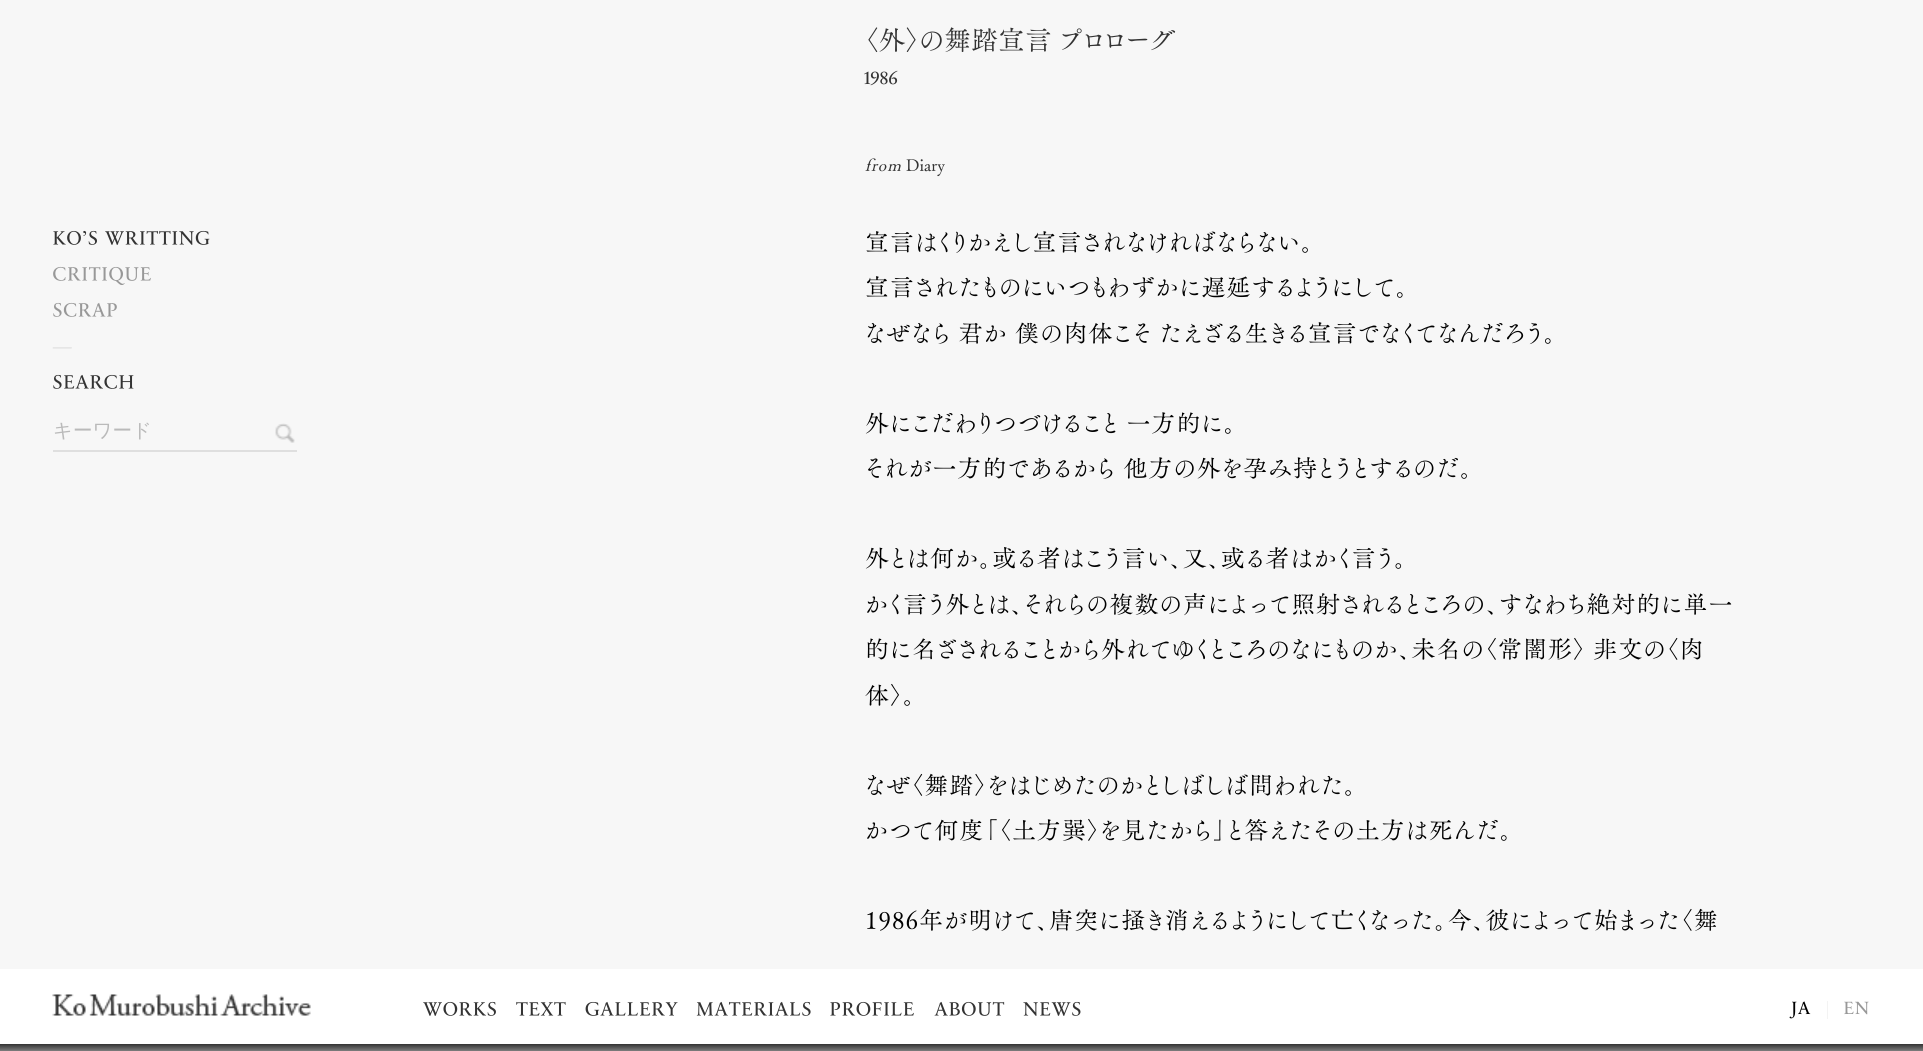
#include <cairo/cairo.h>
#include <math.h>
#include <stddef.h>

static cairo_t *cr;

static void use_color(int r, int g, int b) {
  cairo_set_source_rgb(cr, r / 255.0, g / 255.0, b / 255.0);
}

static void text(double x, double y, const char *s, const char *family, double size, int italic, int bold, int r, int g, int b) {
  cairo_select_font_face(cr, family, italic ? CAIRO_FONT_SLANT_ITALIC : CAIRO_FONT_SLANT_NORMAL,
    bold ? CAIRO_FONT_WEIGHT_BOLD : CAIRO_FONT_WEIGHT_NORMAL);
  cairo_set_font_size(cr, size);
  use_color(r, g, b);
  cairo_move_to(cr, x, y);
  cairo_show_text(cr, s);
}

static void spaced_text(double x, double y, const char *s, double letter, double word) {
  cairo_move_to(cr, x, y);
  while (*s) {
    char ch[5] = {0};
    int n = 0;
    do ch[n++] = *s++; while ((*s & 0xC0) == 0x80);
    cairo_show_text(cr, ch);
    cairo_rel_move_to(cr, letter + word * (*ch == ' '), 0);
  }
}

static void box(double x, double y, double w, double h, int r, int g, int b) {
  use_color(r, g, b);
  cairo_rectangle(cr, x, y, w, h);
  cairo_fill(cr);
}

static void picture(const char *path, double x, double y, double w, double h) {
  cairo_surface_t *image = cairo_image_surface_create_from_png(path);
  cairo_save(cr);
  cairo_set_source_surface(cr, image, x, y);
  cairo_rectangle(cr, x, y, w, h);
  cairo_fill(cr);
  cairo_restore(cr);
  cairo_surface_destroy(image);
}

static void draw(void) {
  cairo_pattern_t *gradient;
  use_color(247, 247, 247);
  cairo_paint(cr);
  picture("img_01.png", 864, 70, 34, 16);
  picture("img_02.png", 53, 230, 44, 15);
  picture("img_03.png", 105, 230, 105, 15);
  picture("img_04.png", 53, 266, 98, 19);
  picture("img_05.png", 53, 302, 64, 15);
  picture("img_06.png", 52, 347, 20, 2);
  picture("img_07.png", 53, 374, 81, 15);
  box(53, 450, 244, 2, 223, 223, 223);
  picture("img_08.png", 275, 423, 20, 20);
  box(0, 969, 1923, 75, 255, 255, 255);
  picture("img_09.png", 52, 994, 259, 23);
  picture("img_10.png", 423, 1001, 73, 15);
  picture("img_11.png", 516, 1001, 50, 15);
  picture("img_12.png", 585, 1001, 93, 15);
  picture("img_13.png", 696, 1001, 115, 15);
  picture("img_14.png", 830, 1001, 84, 15);
  picture("img_15.png", 934, 1001, 71, 15);
  picture("img_16.png", 1023, 1001, 58, 15);
  picture("img_17.png", 1789, 1001, 22, 18);
  use_color(232, 232, 232);
  cairo_new_path(cr);
  cairo_move_to(cr, 1828, 1001);
  cairo_line_to(cr, 1827.5, 1001);
  cairo_line_to(cr, 1827.5, 1019);
  cairo_line_to(cr, 1828, 1019);
  cairo_close_path(cr);
  cairo_fill(cr);
  picture("img_18.png", 1844, 1001, 25, 14);
  gradient = cairo_pattern_create_linear(962, 1044, 962, 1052);
  cairo_pattern_add_color_stop_rgba(gradient, 0, 0.2, 0.2, 0.2, 1);
  cairo_pattern_add_color_stop_rgba(gradient, 1, 0.533, 0.533, 0.533, 1);
  cairo_set_source(cr, gradient);
  cairo_pattern_destroy(gradient);
  cairo_rectangle(cr, 0, 1044, 1923, 7);
  cairo_fill(cr);
  text(865, 50, "〈外〉の舞踏宣言 プロローグ", "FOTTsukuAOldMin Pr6", 27, 0, 0, 51, 51, 51);
  cairo_select_font_face(cr, "FOTTsukuAOldMin Pr6", CAIRO_FONT_SLANT_ITALIC, CAIRO_FONT_WEIGHT_NORMAL);
  cairo_set_font_size(cr, 16.5);
  spaced_text(865, 171, "from", 1, 0);
  text(906, 171, "Diary", "FOTTsukuAOldMin Pr6", 16.5, 0, 0, 51, 51, 51);
  text(53, 437, "キーワード", "WenQuanYi Zen Hei Medium", 19.5, 0, 0, 186, 186, 186);
  cairo_select_font_face(cr, "FOTTsukuAOldMin Pr6", CAIRO_FONT_SLANT_NORMAL, CAIRO_FONT_WEIGHT_NORMAL);
  cairo_set_font_size(cr, 24);
  use_color(0, 0, 0);
  spaced_text(865, 251, "宣言はくりかえし宣言されなければならない。", 1, 0);
  spaced_text(865, 296, "宣言されたものにいつもわずかに遅延するようにして。", 1, 0);
  spaced_text(865, 342, "なぜなら 君か 僕の肉体こそ たえざる生きる宣言でなくてなんだろう。", 1, 0);
  spaced_text(865, 432, "外にこだわりつづけること 一方的に。", 1, 0);
  spaced_text(865, 477, "それが一方的であるから 他方の外を孕み持とうとするのだ。", 1, 0);
  spaced_text(865, 567, "外とは何か。或る者はこう言い、又、或る者はかく言う。", 1, 0);
  spaced_text(865, 613, "かく言う外とは、それらの複数の声によって照射されるところの、すなわち絶対的に単一", 1, 0);
  spaced_text(865, 658, "的に名ざされることから外れてゆくところのなにものか、未名の〈常闇形〉 非文の〈肉", 1, 0);
  spaced_text(865, 704, "体〉。", 1, 0);
  spaced_text(865, 794, "なぜ〈舞踏〉をはじめたのかとしばしば問われた。", 1, 0);
  spaced_text(865, 839, "かつて何度「〈土方巽〉を見たから」と答えたその土方は死んだ。", 1, 0);
  spaced_text(865, 929, "1986年が明けて、唐突に掻き消えるようにして亡くなった。今、彼によって始まった〈舞", 1, 0);
}

int main(void) {
  cairo_surface_t *surface = cairo_image_surface_create(CAIRO_FORMAT_RGB24, 1923, 1051);
  cr = cairo_create(surface);
  cairo_font_options_t *options = cairo_font_options_create();
  cairo_font_options_set_hint_metrics(options, CAIRO_HINT_METRICS_OFF);
  cairo_font_options_set_hint_style(options, CAIRO_HINT_STYLE_NONE);
  cairo_set_font_options(cr, options);
  cairo_set_miter_limit(cr, 4);
  draw();
  cairo_surface_write_to_png(surface, "out.png");
  cairo_font_options_destroy(options);
  cairo_destroy(cr);
  cairo_surface_destroy(surface);
  return 0;
}
